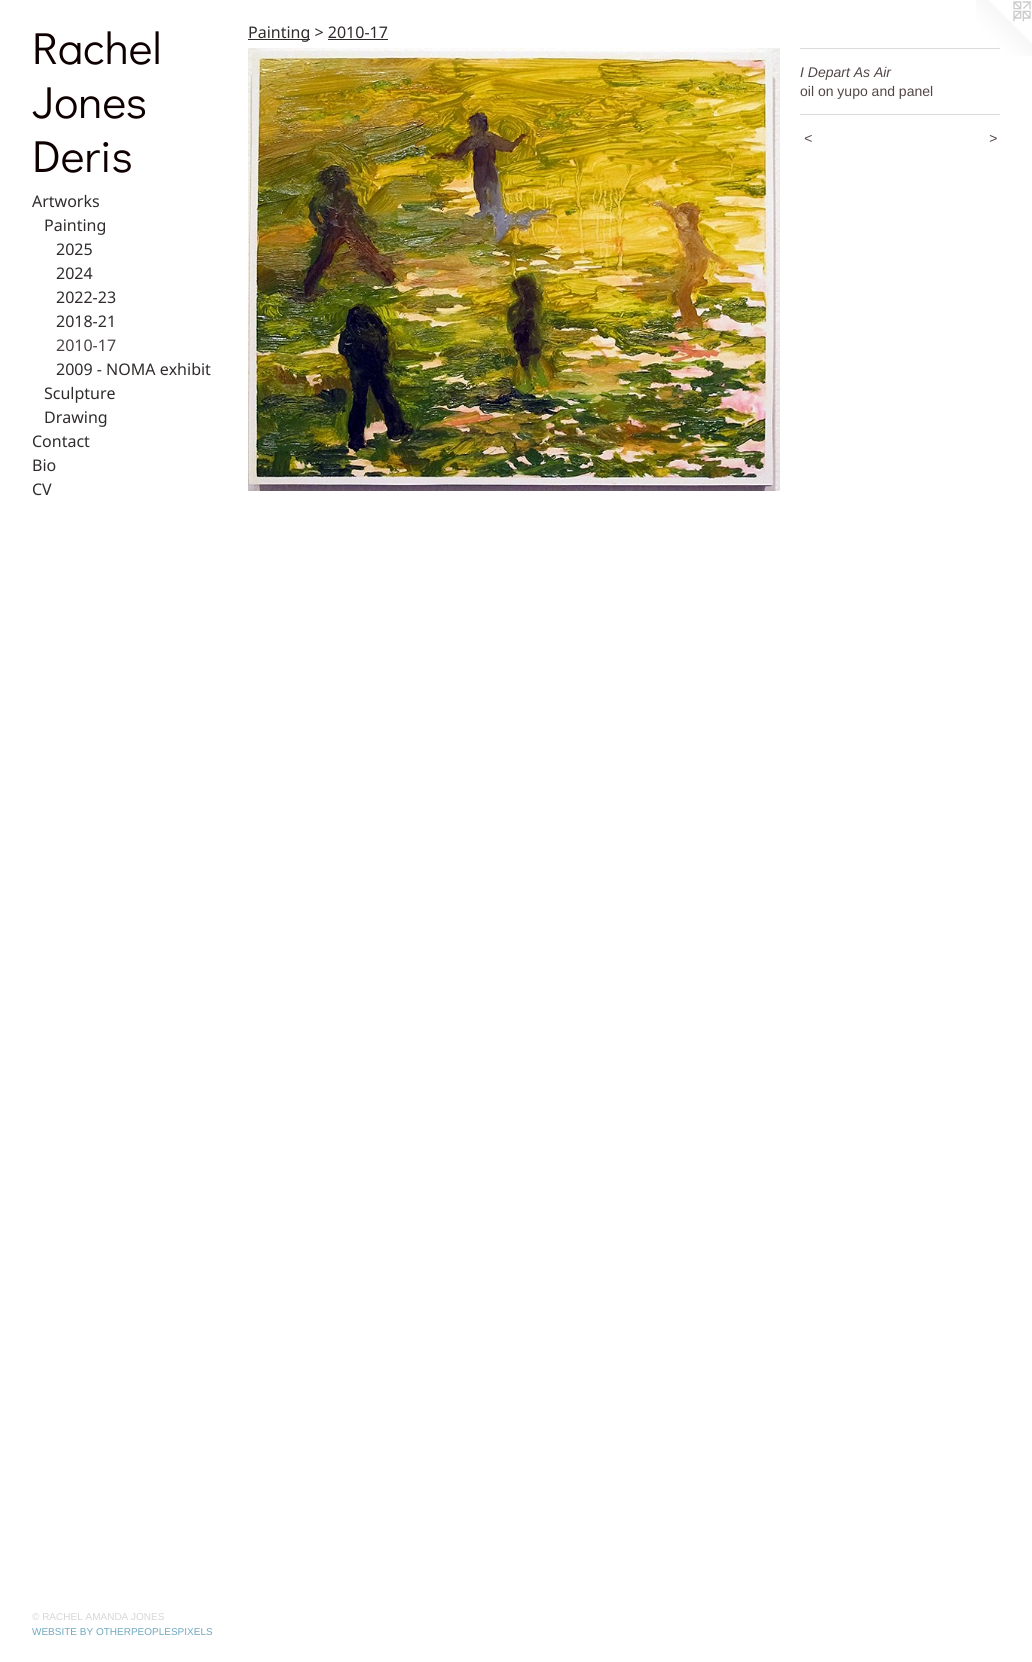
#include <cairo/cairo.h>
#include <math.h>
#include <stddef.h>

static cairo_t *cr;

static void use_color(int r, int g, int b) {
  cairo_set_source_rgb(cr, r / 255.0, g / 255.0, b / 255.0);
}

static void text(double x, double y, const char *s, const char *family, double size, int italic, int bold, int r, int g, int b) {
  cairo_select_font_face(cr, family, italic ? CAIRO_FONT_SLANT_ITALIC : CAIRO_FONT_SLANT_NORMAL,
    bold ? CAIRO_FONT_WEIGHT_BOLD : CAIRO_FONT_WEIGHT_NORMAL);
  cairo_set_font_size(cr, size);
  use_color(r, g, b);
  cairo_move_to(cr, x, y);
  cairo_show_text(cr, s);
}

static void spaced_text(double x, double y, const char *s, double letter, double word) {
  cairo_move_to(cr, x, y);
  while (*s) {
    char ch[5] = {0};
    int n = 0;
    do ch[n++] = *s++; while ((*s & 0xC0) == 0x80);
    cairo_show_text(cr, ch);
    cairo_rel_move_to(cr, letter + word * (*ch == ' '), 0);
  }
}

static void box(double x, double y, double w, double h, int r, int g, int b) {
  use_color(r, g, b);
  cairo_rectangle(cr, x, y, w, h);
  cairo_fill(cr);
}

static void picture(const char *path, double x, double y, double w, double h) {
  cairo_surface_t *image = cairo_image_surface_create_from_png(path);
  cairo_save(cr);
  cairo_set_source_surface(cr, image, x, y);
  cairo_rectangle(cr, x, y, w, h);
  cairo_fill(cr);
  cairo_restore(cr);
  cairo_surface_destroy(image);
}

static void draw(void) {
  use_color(255, 255, 255);
  cairo_paint(cr);
  box(248, 39, 62, 1, 48, 44, 44);
  box(328, 39, 60, 1, 48, 44, 44);
  picture("img_01.png", 248, 48, 532, 443);
  picture("img_02.png", 976, 0, 56, 56);
  box(800, 48, 200, 1, 221, 218, 218);
  box(800, 114, 200, 1, 221, 218, 218);
  text(32, 64, "Rachel", "Didact Gothic", 45, 0, 0, 15, 0, 0);
  text(32, 118, "Jones", "Didact Gothic", 45, 0, 0, 15, 0, 0);
  text(32, 172, "Deris", "Didact Gothic", 45, 0, 0, 15, 0, 0);
  text(32, 207, "Artworks", "Noto Sans", 16, 0, 0, 48, 44, 44);
  text(44, 231, "Painting", "Noto Sans", 16, 0, 0, 48, 44, 44);
  text(56, 255, "2025", "Noto Sans", 16, 0, 0, 48, 44, 44);
  text(56, 279, "2024", "Noto Sans", 16, 0, 0, 48, 44, 44);
  text(56, 303, "2022-23", "Noto Sans", 16, 0, 0, 48, 44, 44);
  text(56, 327, "2018-21", "Noto Sans", 16, 0, 0, 48, 44, 44);
  text(56, 351, "2010-17", "Noto Sans", 16, 0, 0, 75, 68, 68);
  text(56, 375, "2009 - NOMA exhibit", "Noto Sans", 16, 0, 0, 48, 44, 44);
  text(44, 399, "Sculpture", "Noto Sans", 16, 0, 0, 48, 44, 44);
  text(44, 423, "Drawing", "Noto Sans", 16, 0, 0, 48, 44, 44);
  text(32, 447, "Contact", "Noto Sans", 16, 0, 0, 48, 44, 44);
  text(32, 471, "Bio", "Noto Sans", 16, 0, 0, 48, 44, 44);
  text(32, 495, "CV", "Noto Sans", 16, 0, 0, 48, 44, 44);
  text(32, 1620, "© RACHEL AMANDA JONES", "Liberation Sans", 10, 0, 0, 214, 214, 214);
  text(32, 1635, "WEBSITE BY OTHERPEOPLESPIXELS", "Liberation Sans", 10, 0, 0, 112, 168, 192);
  text(248, 38, "Painting > 2010-17", "Noto Sans", 16, 0, 0, 48, 44, 44);
  text(800, 77, "I Depart As Air", "Liberation Sans", 14, 1, 0, 83, 70, 70);
  text(800, 96, "oil on yupo and panel", "Liberation Sans", 14, 0, 0, 83, 70, 70);
  cairo_select_font_face(cr, "Liberation Sans", CAIRO_FONT_SLANT_ITALIC, CAIRO_FONT_WEIGHT_NORMAL);
  spaced_text(804, 143, "<", 1, 0);
  spaced_text(989, 143, ">", 1, 0);
}

int main(void) {
  cairo_surface_t *surface = cairo_image_surface_create(CAIRO_FORMAT_RGB24, 1032, 1662);
  cr = cairo_create(surface);
  cairo_font_options_t *options = cairo_font_options_create();
  cairo_font_options_set_hint_metrics(options, CAIRO_HINT_METRICS_OFF);
  cairo_font_options_set_hint_style(options, CAIRO_HINT_STYLE_NONE);
  cairo_set_font_options(cr, options);
  cairo_set_miter_limit(cr, 4);
  draw();
  cairo_surface_write_to_png(surface, "out.png");
  cairo_font_options_destroy(options);
  cairo_destroy(cr);
  cairo_surface_destroy(surface);
  return 0;
}
